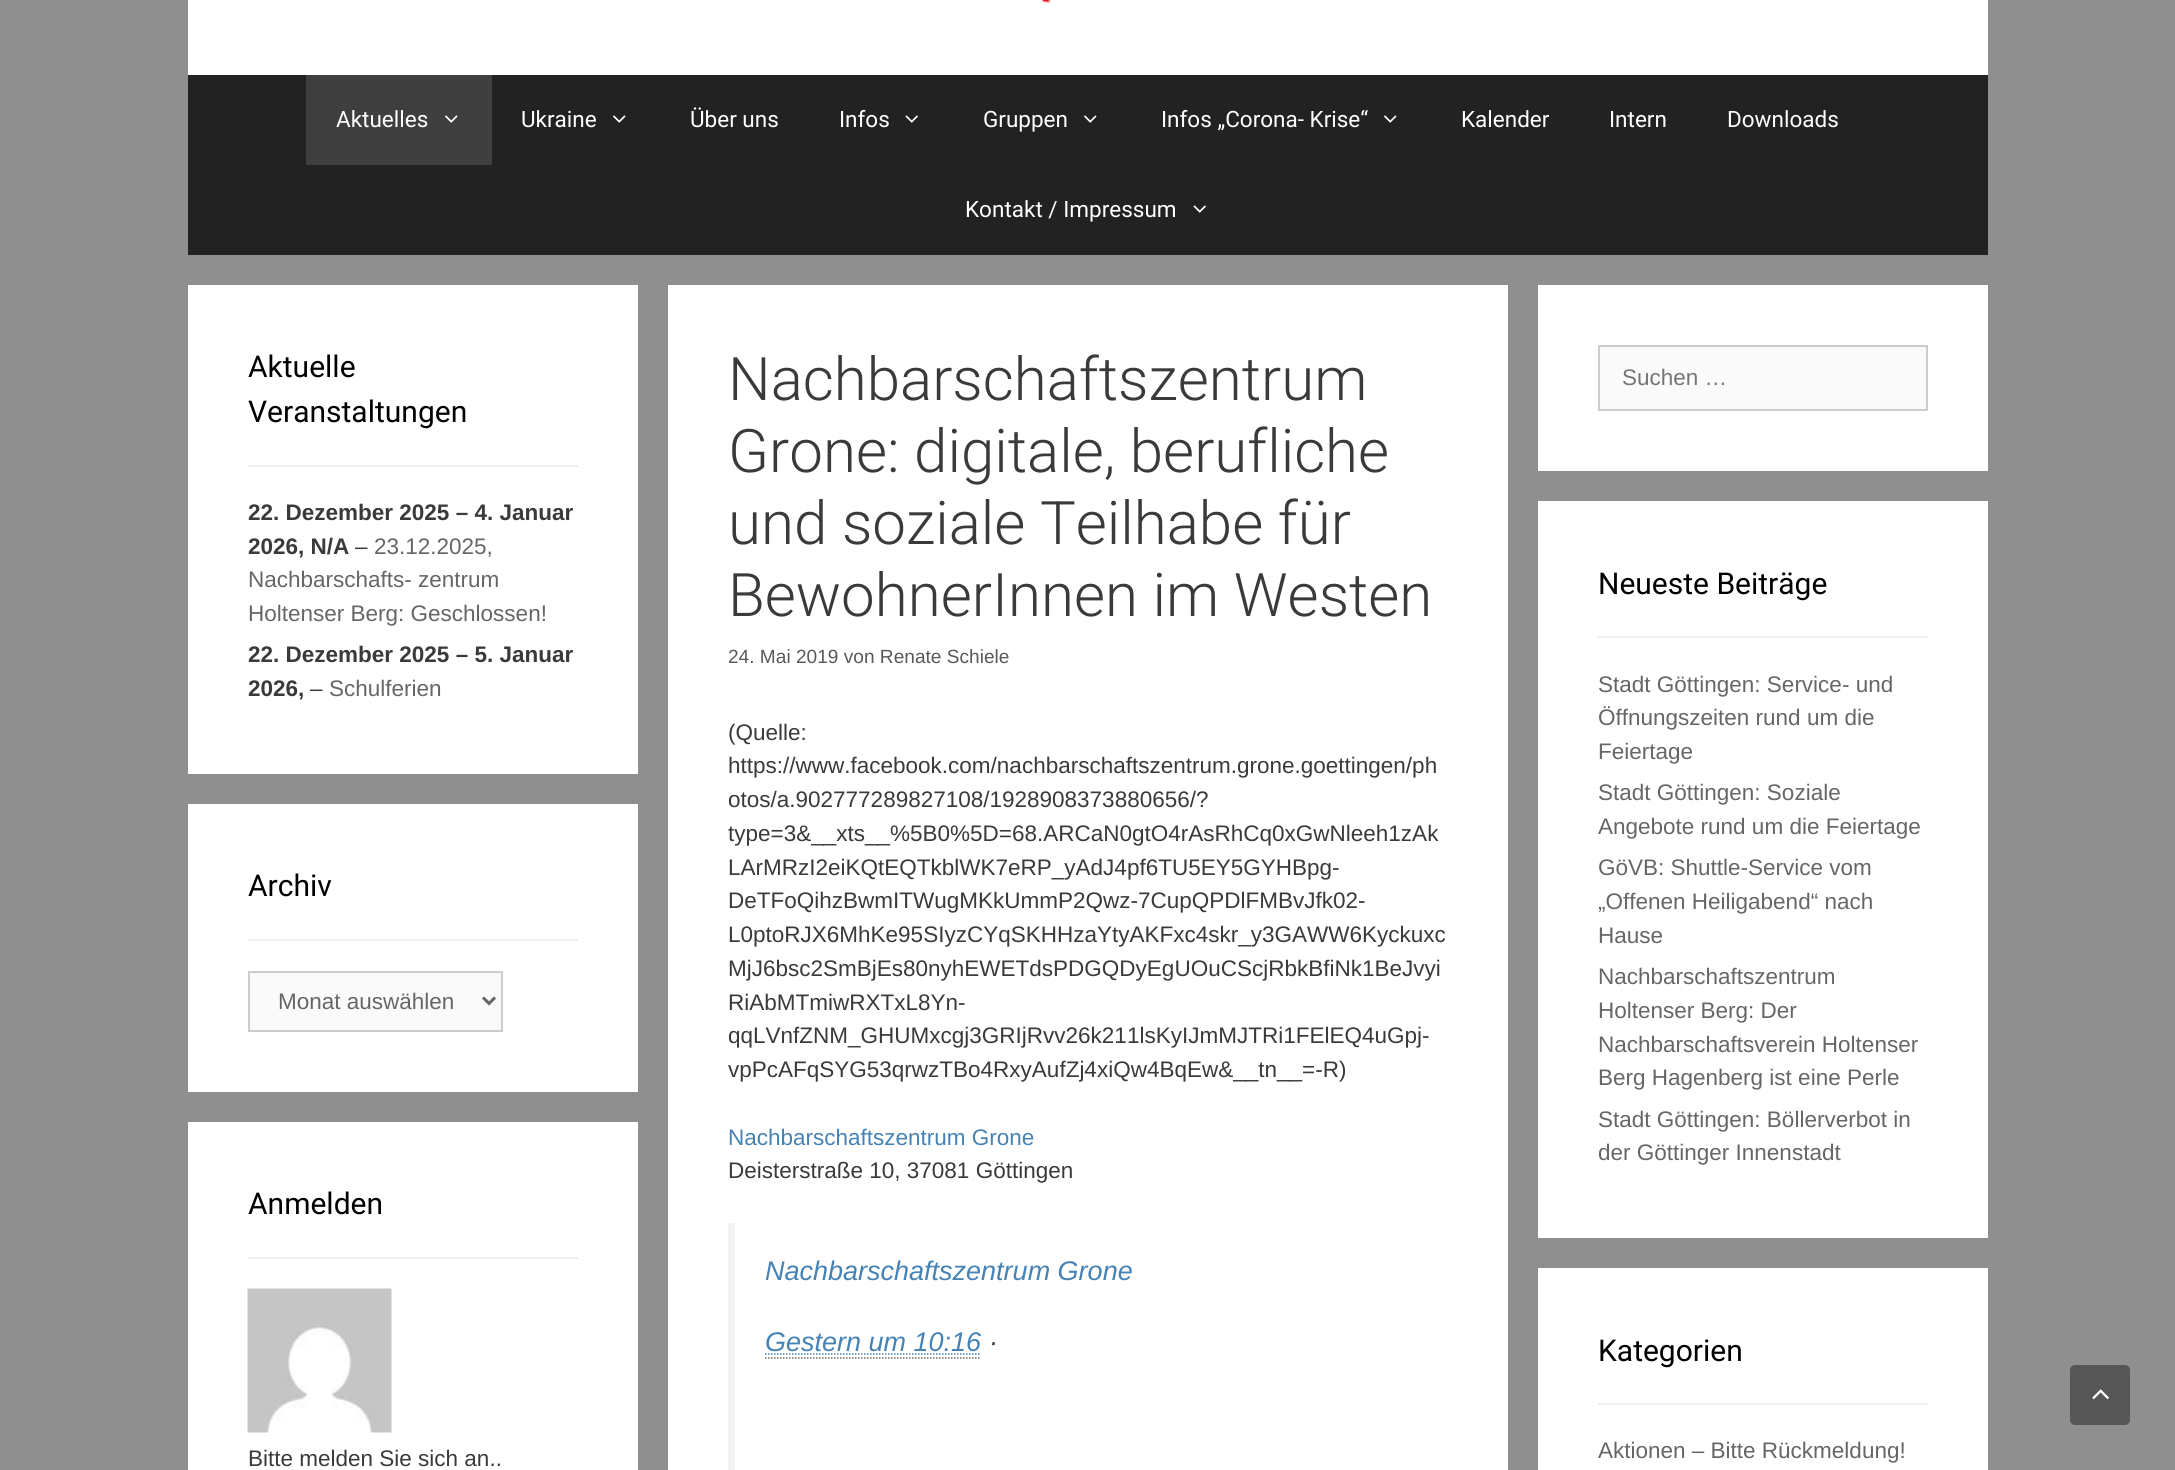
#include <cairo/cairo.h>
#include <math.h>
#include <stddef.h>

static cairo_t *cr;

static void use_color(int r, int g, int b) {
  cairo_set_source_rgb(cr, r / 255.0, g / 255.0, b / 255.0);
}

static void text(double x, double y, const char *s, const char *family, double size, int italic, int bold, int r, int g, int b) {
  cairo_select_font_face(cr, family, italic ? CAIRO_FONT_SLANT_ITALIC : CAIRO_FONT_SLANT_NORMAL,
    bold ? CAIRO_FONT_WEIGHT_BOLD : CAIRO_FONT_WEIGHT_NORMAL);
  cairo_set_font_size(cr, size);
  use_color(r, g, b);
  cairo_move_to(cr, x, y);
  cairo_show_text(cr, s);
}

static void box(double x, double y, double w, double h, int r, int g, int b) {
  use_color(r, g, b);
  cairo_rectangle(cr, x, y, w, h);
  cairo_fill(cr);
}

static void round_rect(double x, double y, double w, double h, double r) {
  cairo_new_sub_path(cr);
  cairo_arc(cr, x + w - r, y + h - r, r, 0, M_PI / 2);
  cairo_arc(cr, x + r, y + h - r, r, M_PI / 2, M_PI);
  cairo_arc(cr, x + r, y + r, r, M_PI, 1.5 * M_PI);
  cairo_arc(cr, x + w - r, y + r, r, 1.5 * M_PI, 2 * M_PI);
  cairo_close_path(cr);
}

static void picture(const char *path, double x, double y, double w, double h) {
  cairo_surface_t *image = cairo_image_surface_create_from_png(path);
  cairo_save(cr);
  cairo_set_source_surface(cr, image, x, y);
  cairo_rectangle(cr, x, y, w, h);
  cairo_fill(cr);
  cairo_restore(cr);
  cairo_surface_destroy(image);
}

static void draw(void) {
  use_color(143, 143, 143);
  cairo_paint(cr);
  box(188, 0, 1800, 75, 255, 255, 255);
  picture("img_01.png", 1041, 0, 10, 4);
  box(188, 75, 1800, 180, 34, 34, 34);
  box(306, 75, 186, 90, 63, 63, 63);
  picture("img_02.png", 445, 115, 13, 8);
  picture("img_03.png", 613, 115, 13, 8);
  picture("img_04.png", 905, 115, 13, 8);
  picture("img_03.png", 1084, 115, 13, 8);
  picture("img_03.png", 1384, 115, 13, 8);
  picture("img_04.png", 1193, 205, 13, 8);
  box(188, 285, 450, 489, 255, 255, 255);
  box(248, 465, 330, 2, 239, 239, 239);
  box(188, 804, 450, 288, 255, 255, 255);
  box(248, 939, 330, 2, 239, 239, 239);
  use_color(250, 250, 250);
  cairo_rectangle(cr, 249, 972, 253, 59);
  cairo_fill_preserve(cr);
  use_color(204, 204, 204);
  cairo_stroke(cr);
  cairo_new_path(cr);
  cairo_move_to(cr, 483, 997.5);
  cairo_line_to(cr, 489, 1003.5);
  cairo_line_to(cr, 495, 997.5);
  use_color(102, 102, 102);
  cairo_set_line_width(cr, 3);
  cairo_stroke(cr);
  box(188, 1122, 450, 348, 255, 255, 255);
  box(248, 1257, 330, 2, 239, 239, 239);
  picture("img_05.png", 247, 1288, 145, 145);
  box(668, 285, 840, 1185, 255, 255, 255);
  box(728, 1223, 7, 247, 242, 242, 242);
  cairo_new_path(cr);
  cairo_move_to(cr, 765, 1358);
  cairo_line_to(cr, 981, 1358);
  use_color(102, 102, 102);
  cairo_set_line_width(cr, 1.5);
  cairo_set_dash(cr, (double[]){1.5, 1.5}, 2, 0);
  cairo_stroke(cr);
  cairo_new_path(cr);
  cairo_move_to(cr, 765, 1354);
  cairo_line_to(cr, 981, 1354);
  use_color(70, 130, 180);
  cairo_stroke(cr);
  box(1538, 285, 450, 186, 255, 255, 255);
  use_color(250, 250, 250);
  cairo_rectangle(cr, 1599, 346, 328, 64);
  cairo_fill_preserve(cr);
  use_color(204, 204, 204);
  cairo_set_line_width(cr, 2);
  cairo_set_dash(cr, NULL, 0, 0);
  cairo_stroke(cr);
  box(1538, 501, 450, 737, 255, 255, 255);
  box(1598, 636, 330, 2, 239, 239, 239);
  box(1538, 1268, 450, 202, 255, 255, 255);
  box(1598, 1403, 330, 2, 239, 239, 239);
  use_color(86, 86, 86);
  round_rect(2070, 1365, 60, 60, 5);
  cairo_fill(cr);
  picture("img_06.png", 2092, 1389, 17, 11);
  text(336, 127, "Aktuelles", "Roboto", 22.5, 0, 0, 255, 255, 255);
  text(521, 127, "Ukraine", "Roboto", 22.5, 0, 0, 255, 255, 255);
  text(690, 127, "Über uns", "Roboto", 22.5, 0, 0, 255, 255, 255);
  text(839, 127, "Infos", "Roboto", 22.5, 0, 0, 255, 255, 255);
  text(983, 127, "Gruppen", "Roboto", 22.5, 0, 0, 255, 255, 255);
  text(1161, 127, "Infos „Corona- Krise“", "Roboto", 22.5, 0, 0, 255, 255, 255);
  text(1461, 127, "Kalender", "Roboto", 22.5, 0, 0, 255, 255, 255);
  text(1609, 127, "Intern", "Roboto", 22.5, 0, 0, 255, 255, 255);
  text(1727, 127, "Downloads", "Roboto", 22.5, 0, 0, 255, 255, 255);
  text(965, 217, "Kontakt / Impressum", "Roboto", 22.5, 0, 0, 255, 255, 255);
  text(248, 377, "Aktuelle", "Roboto", 30, 0, 0, 0, 0, 0);
  text(248, 422, "Veranstaltungen", "Roboto", 30, 0, 0, 0, 0, 0);
  text(248, 520, "22. Dezember 2025 – 4. Januar", "Liberation Sans", 22.5, 0, 1, 58, 58, 58);
  text(248, 554, "2026, N/A", "Liberation Sans", 22.5, 0, 1, 58, 58, 58);
  text(355, 554, "–", "Liberation Sans", 22.5, 0, 0, 58, 58, 58);
  text(374, 554, "23.12.2025,", "Liberation Sans", 22.5, 0, 0, 102, 102, 102);
  text(248, 587, "Nachbarschafts- zentrum", "Liberation Sans", 22.5, 0, 0, 102, 102, 102);
  text(248, 621, "Holtenser Berg: Geschlossen!", "Liberation Sans", 22.5, 0, 0, 102, 102, 102);
  text(248, 662, "22. Dezember 2025 – 5. Januar", "Liberation Sans", 22.5, 0, 1, 58, 58, 58);
  text(248, 696, "2026,", "Liberation Sans", 22.5, 0, 1, 58, 58, 58);
  text(310, 696, "–", "Liberation Sans", 22.5, 0, 0, 58, 58, 58);
  text(329, 696, "Schulferien", "Liberation Sans", 22.5, 0, 0, 102, 102, 102);
  text(248, 896, "Archiv", "Roboto", 30, 0, 0, 0, 0, 0);
  text(278, 1009, "Monat auswählen", "Liberation Sans", 22.5, 0, 0, 102, 102, 102);
  text(248, 1214, "Anmelden", "Roboto", 30, 0, 0, 0, 0, 0);
  text(248, 1466, "Bitte melden Sie sich an..", "Liberation Sans", 22.5, 0, 0, 58, 58, 58);
  text(728, 400, "Nachbarschaftszentrum", "Roboto Light", 60, 0, 0, 58, 58, 58);
  text(728, 472, "Grone: digitale, berufliche", "Roboto Light", 60, 0, 0, 58, 58, 58);
  text(728, 544, "und soziale Teilhabe für", "Roboto Light", 60, 0, 0, 58, 58, 58);
  text(728, 616, "BewohnerInnen im Westen", "Roboto Light", 60, 0, 0, 58, 58, 58);
  text(728, 663, "24. Mai 2019 von Renate Schiele", "Liberation Sans", 19.1, 0, 0, 89, 89, 89);
  text(728, 740, "(Quelle:", "Liberation Sans", 22.5, 0, 0, 58, 58, 58);
  text(728, 773, "https://www.facebook.com/nachbarschaftszentrum.grone.goettingen/ph", "Liberation Sans", 22.5, 0, 0, 58, 58, 58);
  text(728, 807, "otos/a.902777289827108/1928908373880656/?", "Liberation Sans", 22.5, 0, 0, 58, 58, 58);
  text(728, 841, "type=3&__xts__%5B0%5D=68.ARCaN0gtO4rAsRhCq0xGwNleeh1zAk", "Liberation Sans", 22.5, 0, 0, 58, 58, 58);
  text(728, 875, "LArMRzI2eiKQtEQTkblWK7eRP_yAdJ4pf6TU5EY5GYHBpg-", "Liberation Sans", 22.5, 0, 0, 58, 58, 58);
  text(728, 908, "DeTFoQihzBwmITWugMKkUmmP2Qwz-7CupQPDlFMBvJfk02-", "Liberation Sans", 22.5, 0, 0, 58, 58, 58);
  text(728, 942, "L0ptoRJX6MhKe95SIyzCYqSKHHzaYtyAKFxc4skr_y3GAWW6Kyckuxc", "Liberation Sans", 22.5, 0, 0, 58, 58, 58);
  text(728, 976, "MjJ6bsc2SmBjEs80nyhEWETdsPDGQDyEgUOuCScjRbkBfiNk1BeJvyi", "Liberation Sans", 22.5, 0, 0, 58, 58, 58);
  text(728, 1010, "RiAbMTmiwRXTxL8Yn-", "Liberation Sans", 22.5, 0, 0, 58, 58, 58);
  text(728, 1043, "qqLVnfZNM_GHUMxcgj3GRIjRvv26k211lsKyIJmMJTRi1FElEQ4uGpj-", "Liberation Sans", 22.5, 0, 0, 58, 58, 58);
  text(728, 1077, "vpPcAFqSYG53qrwzTBo4RxyAufZj4xiQw4BqEw&__tn__=-R)", "Liberation Sans", 22.5, 0, 0, 58, 58, 58);
  text(728, 1145, "Nachbarschaftszentrum Grone", "Liberation Sans", 22.5, 0, 0, 70, 130, 180);
  text(728, 1178, "Deisterstraße 10, 37081 Göttingen", "Liberation Sans", 22.5, 0, 0, 58, 58, 58);
  text(765, 1280, "Nachbarschaftszentrum Grone", "Liberation Sans", 27, 1, 0, 70, 130, 180);
  text(765, 1351, "Gestern um 10:16", "Liberation Sans", 27, 1, 0, 70, 130, 180);
  text(989, 1351, "·", "Liberation Sans", 27, 1, 0, 58, 58, 58);
  text(1622, 385, "Suchen …", "Liberation Sans", 22.5, 0, 0, 117, 117, 117);
  text(1598, 594, "Neueste Beiträge", "Roboto", 30, 0, 0, 0, 0, 0);
  text(1598, 692, "Stadt Göttingen: Service- und", "Liberation Sans", 22.5, 0, 0, 102, 102, 102);
  text(1598, 725, "Öffnungszeiten rund um die", "Liberation Sans", 22.5, 0, 0, 102, 102, 102);
  text(1598, 759, "Feiertage", "Liberation Sans", 22.5, 0, 0, 102, 102, 102);
  text(1598, 800, "Stadt Göttingen: Soziale", "Liberation Sans", 22.5, 0, 0, 102, 102, 102);
  text(1598, 834, "Angebote rund um die Feiertage", "Liberation Sans", 22.5, 0, 0, 102, 102, 102);
  text(1598, 875, "GöVB: Shuttle-Service vom", "Liberation Sans", 22.5, 0, 0, 102, 102, 102);
  text(1598, 909, "„Offenen Heiligabend“ nach", "Liberation Sans", 22.5, 0, 0, 102, 102, 102);
  text(1598, 943, "Hause", "Liberation Sans", 22.5, 0, 0, 102, 102, 102);
  text(1598, 984, "Nachbarschaftszentrum", "Liberation Sans", 22.5, 0, 0, 102, 102, 102);
  text(1598, 1018, "Holtenser Berg: Der", "Liberation Sans", 22.5, 0, 0, 102, 102, 102);
  text(1598, 1052, "Nachbarschaftsverein Holtenser", "Liberation Sans", 22.5, 0, 0, 102, 102, 102);
  text(1598, 1085, "Berg Hagenberg ist eine Perle", "Liberation Sans", 22.5, 0, 0, 102, 102, 102);
  text(1598, 1127, "Stadt Göttingen: Böllerverbot in", "Liberation Sans", 22.5, 0, 0, 102, 102, 102);
  text(1598, 1160, "der Göttinger Innenstadt", "Liberation Sans", 22.5, 0, 0, 102, 102, 102);
  text(1598, 1361, "Kategorien", "Roboto", 30, 0, 0, 0, 0, 0);
  text(1598, 1458, "Aktionen – Bitte Rückmeldung!", "Liberation Sans", 22.5, 0, 0, 102, 102, 102);
}

int main(void) {
  cairo_surface_t *surface = cairo_image_surface_create(CAIRO_FORMAT_RGB24, 2175, 1470);
  cr = cairo_create(surface);
  cairo_font_options_t *options = cairo_font_options_create();
  cairo_font_options_set_hint_metrics(options, CAIRO_HINT_METRICS_OFF);
  cairo_font_options_set_hint_style(options, CAIRO_HINT_STYLE_NONE);
  cairo_set_font_options(cr, options);
  cairo_set_miter_limit(cr, 4);
  draw();
  cairo_surface_write_to_png(surface, "out.png");
  cairo_font_options_destroy(options);
  cairo_destroy(cr);
  cairo_surface_destroy(surface);
  return 0;
}
